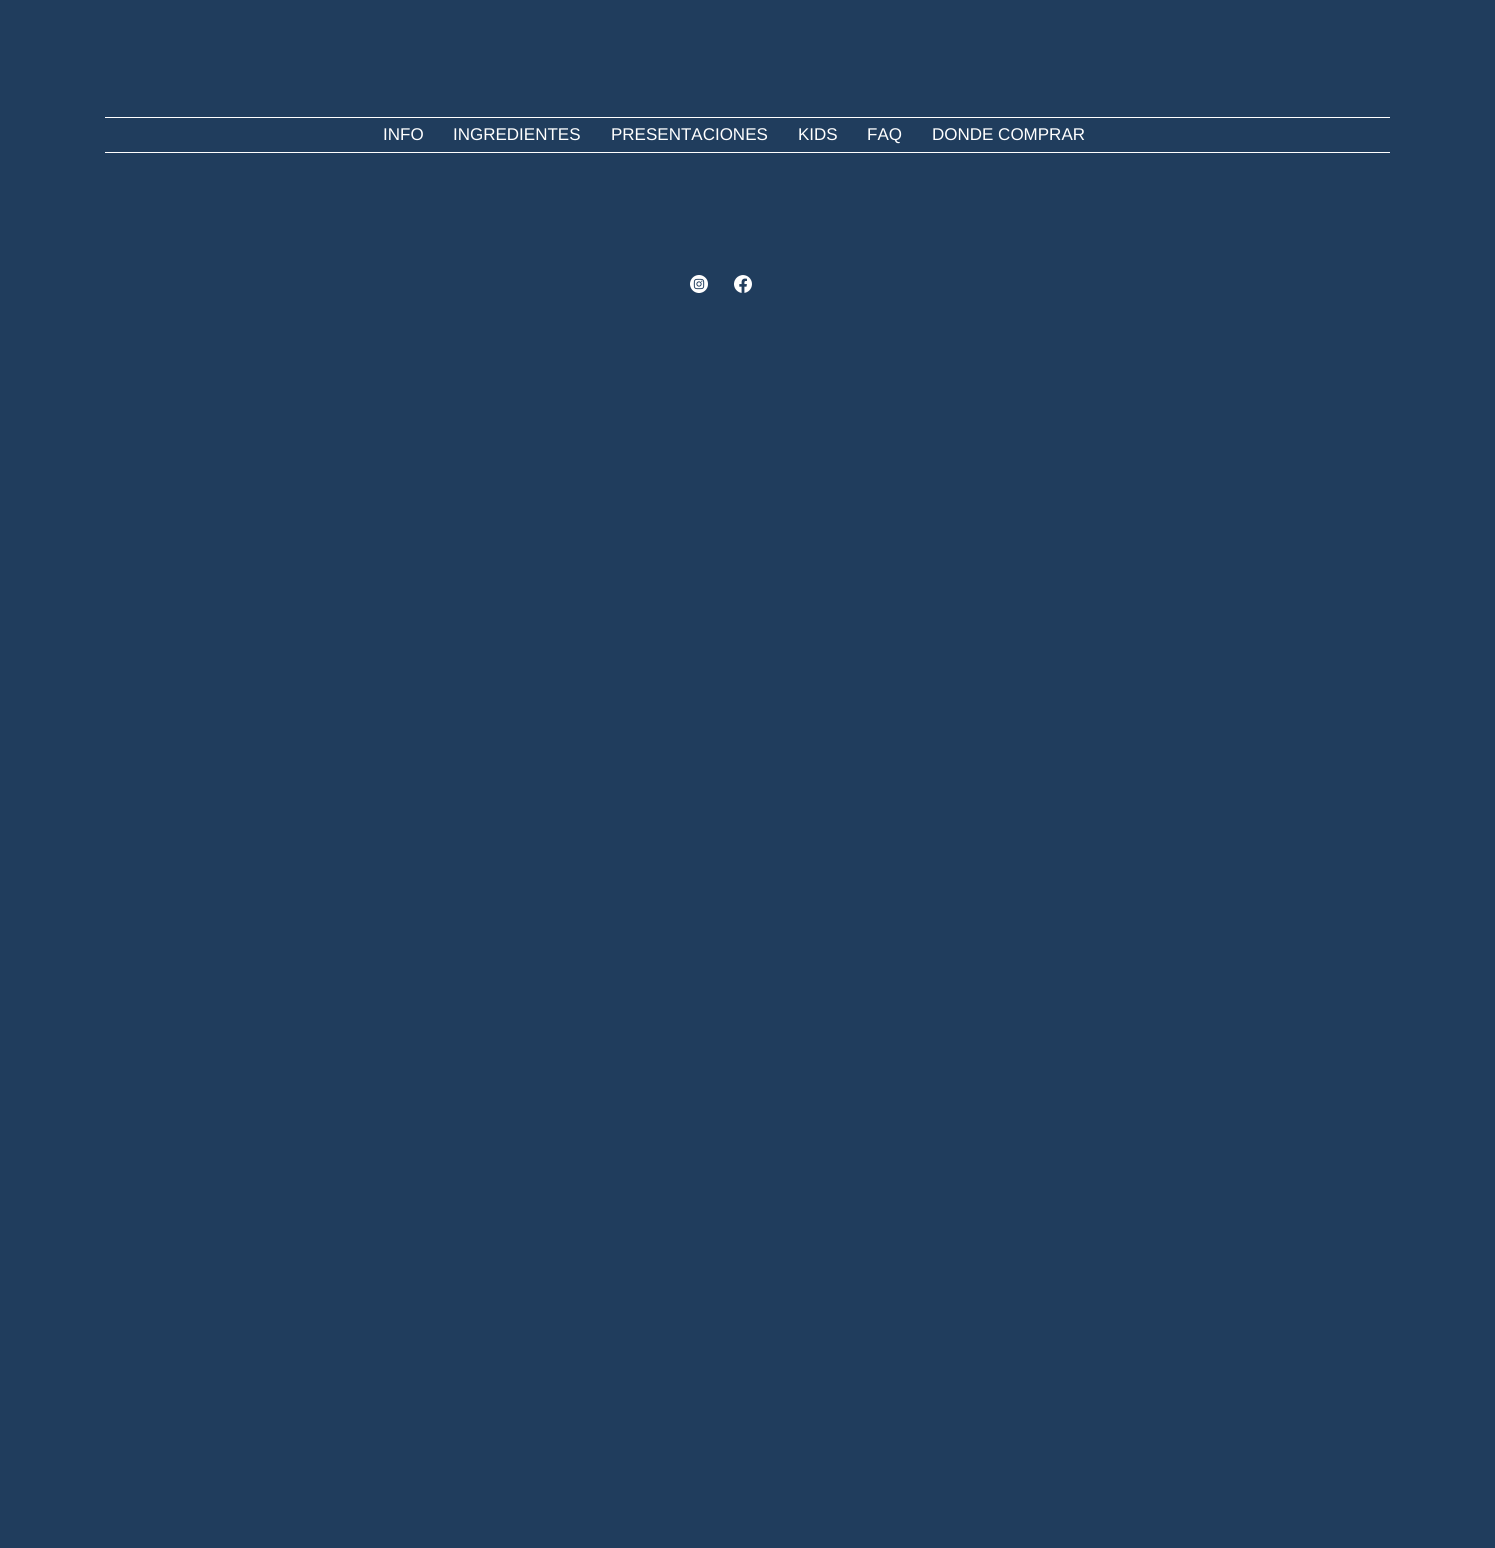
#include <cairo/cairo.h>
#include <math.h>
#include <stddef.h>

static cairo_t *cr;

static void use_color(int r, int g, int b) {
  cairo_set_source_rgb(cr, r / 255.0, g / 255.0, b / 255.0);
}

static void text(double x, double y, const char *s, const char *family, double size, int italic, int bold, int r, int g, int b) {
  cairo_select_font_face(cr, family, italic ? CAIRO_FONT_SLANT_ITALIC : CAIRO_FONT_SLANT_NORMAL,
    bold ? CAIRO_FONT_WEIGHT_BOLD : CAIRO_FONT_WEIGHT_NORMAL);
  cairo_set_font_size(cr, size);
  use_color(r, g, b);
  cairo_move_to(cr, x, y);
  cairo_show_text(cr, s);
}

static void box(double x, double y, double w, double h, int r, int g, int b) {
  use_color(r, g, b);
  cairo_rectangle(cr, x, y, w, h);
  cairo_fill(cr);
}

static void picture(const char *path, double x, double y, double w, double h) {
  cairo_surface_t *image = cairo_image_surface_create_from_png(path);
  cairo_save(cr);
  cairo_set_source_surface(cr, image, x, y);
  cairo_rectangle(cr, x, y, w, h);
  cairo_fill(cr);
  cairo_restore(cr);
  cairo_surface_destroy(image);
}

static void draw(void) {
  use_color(32, 61, 93);
  cairo_paint(cr);
  box(105, 117, 1285, 1, 255, 255, 255);
  box(105, 152, 1285, 1, 255, 255, 255);
  picture("img_01.png", 690, 275, 18, 18);
  picture("img_02.png", 734, 275, 18, 18);
  text(383, 140, "INFO", "Liberation Sans", 17, 0, 0, 255, 255, 255);
  text(453, 140, "INGREDIENTES", "Liberation Sans", 17, 0, 0, 255, 255, 255);
  text(611, 140, "PRESENTACIONES", "Liberation Sans", 17, 0, 0, 255, 255, 255);
  text(798, 140, "KIDS", "Liberation Sans", 17, 0, 0, 255, 255, 255);
  text(867, 140, "FAQ", "Liberation Sans", 17, 0, 0, 255, 255, 255);
  text(932, 140, "DONDE COMPRAR", "Liberation Sans", 17, 0, 0, 255, 255, 255);
}

int main(void) {
  cairo_surface_t *surface = cairo_image_surface_create(CAIRO_FORMAT_RGB24, 1495, 1548);
  cr = cairo_create(surface);
  cairo_font_options_t *options = cairo_font_options_create();
  cairo_font_options_set_hint_metrics(options, CAIRO_HINT_METRICS_OFF);
  cairo_font_options_set_hint_style(options, CAIRO_HINT_STYLE_NONE);
  cairo_set_font_options(cr, options);
  cairo_set_miter_limit(cr, 4);
  draw();
  cairo_surface_write_to_png(surface, "out.png");
  cairo_font_options_destroy(options);
  cairo_destroy(cr);
  cairo_surface_destroy(surface);
  return 0;
}
